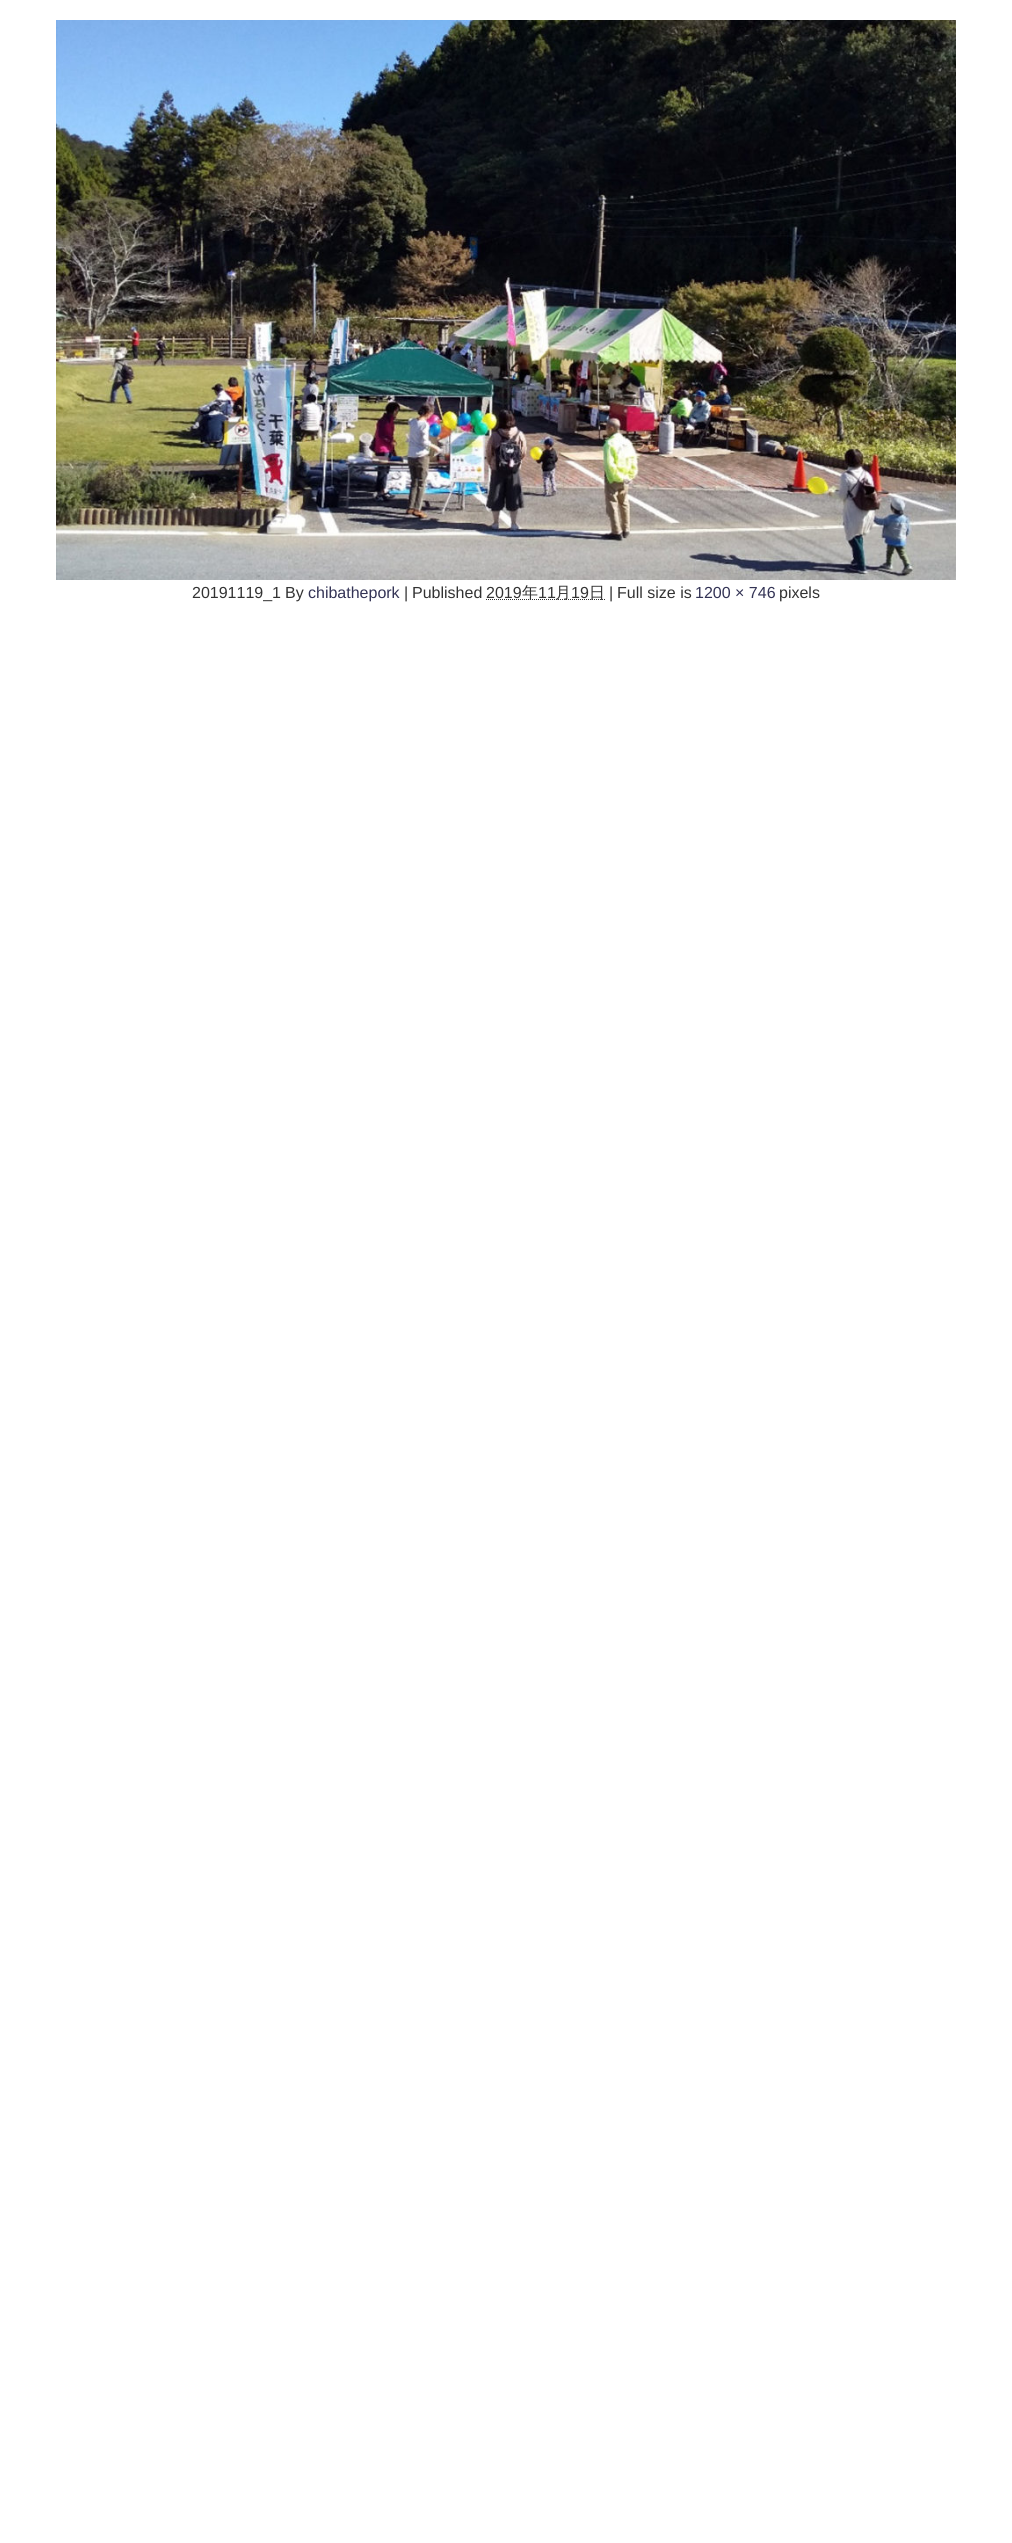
#include <cairo/cairo.h>
#include <math.h>
#include <stddef.h>

static cairo_t *cr;

static void use_color(int r, int g, int b) {
  cairo_set_source_rgb(cr, r / 255.0, g / 255.0, b / 255.0);
}

static void text(double x, double y, const char *s, const char *family, double size, int italic, int bold, int r, int g, int b) {
  cairo_select_font_face(cr, family, italic ? CAIRO_FONT_SLANT_ITALIC : CAIRO_FONT_SLANT_NORMAL,
    bold ? CAIRO_FONT_WEIGHT_BOLD : CAIRO_FONT_WEIGHT_NORMAL);
  cairo_set_font_size(cr, size);
  use_color(r, g, b);
  cairo_move_to(cr, x, y);
  cairo_show_text(cr, s);
}

static void picture(const char *path, double x, double y, double w, double h) {
  cairo_surface_t *image = cairo_image_surface_create_from_png(path);
  cairo_save(cr);
  cairo_set_source_surface(cr, image, x, y);
  cairo_rectangle(cr, x, y, w, h);
  cairo_fill(cr);
  cairo_restore(cr);
  cairo_surface_destroy(image);
}

static void draw(void) {
  use_color(255, 255, 255);
  cairo_paint(cr);
  picture("img_01.png", 56, 20, 900, 560);
  cairo_new_path(cr);
  cairo_move_to(cr, 486, 599.5);
  cairo_line_to(cr, 605, 599.5);
  use_color(51, 51, 51);
  cairo_set_line_width(cr, 1);
  cairo_set_dash(cr, (double[]){1, 1}, 2, 0);
  cairo_stroke(cr);
  text(192, 598, "20191119_1", "Liberation Sans", 16, 0, 0, 51, 51, 51);
  text(285, 598, "By", "Liberation Sans", 16, 0, 0, 51, 51, 51);
  text(308, 598, "chibathepork", "Liberation Sans", 16, 0, 0, 51, 51, 85);
  text(404, 598, "|", "Liberation Sans", 16, 0, 0, 51, 51, 51);
  text(412, 598, "Published", "Liberation Sans", 16, 0, 0, 51, 51, 51);
  text(486, 598, "2019", "Liberation Sans", 16, 0, 0, 51, 51, 51);
  text(522, 598, "年", "WenQuanYi Zen Hei Medium", 16, 0, 0, 51, 51, 51);
  text(538, 598, "11", "Liberation Sans", 16, 0, 0, 51, 51, 51);
  text(555, 598, "月", "WenQuanYi Zen Hei Medium", 16, 0, 0, 51, 51, 51);
  text(571, 598, "19", "Liberation Sans", 16, 0, 0, 51, 51, 51);
  text(589, 598, "日", "WenQuanYi Zen Hei Medium", 16, 0, 0, 51, 51, 51);
  text(609, 598, "|", "Liberation Sans", 16, 0, 0, 51, 51, 51);
  text(617, 598, "Full size is", "Liberation Sans", 16, 0, 0, 51, 51, 51);
  text(695, 598, "1200 × 746", "Liberation Sans", 16, 0, 0, 51, 51, 85);
  text(779, 598, "pixels", "Liberation Sans", 16, 0, 0, 51, 51, 51);
}

int main(void) {
  cairo_surface_t *surface = cairo_image_surface_create(CAIRO_FORMAT_RGB24, 1012, 2543);
  cr = cairo_create(surface);
  cairo_font_options_t *options = cairo_font_options_create();
  cairo_font_options_set_hint_metrics(options, CAIRO_HINT_METRICS_OFF);
  cairo_font_options_set_hint_style(options, CAIRO_HINT_STYLE_NONE);
  cairo_set_font_options(cr, options);
  cairo_set_miter_limit(cr, 4);
  draw();
  cairo_surface_write_to_png(surface, "out.png");
  cairo_font_options_destroy(options);
  cairo_destroy(cr);
  cairo_surface_destroy(surface);
  return 0;
}
